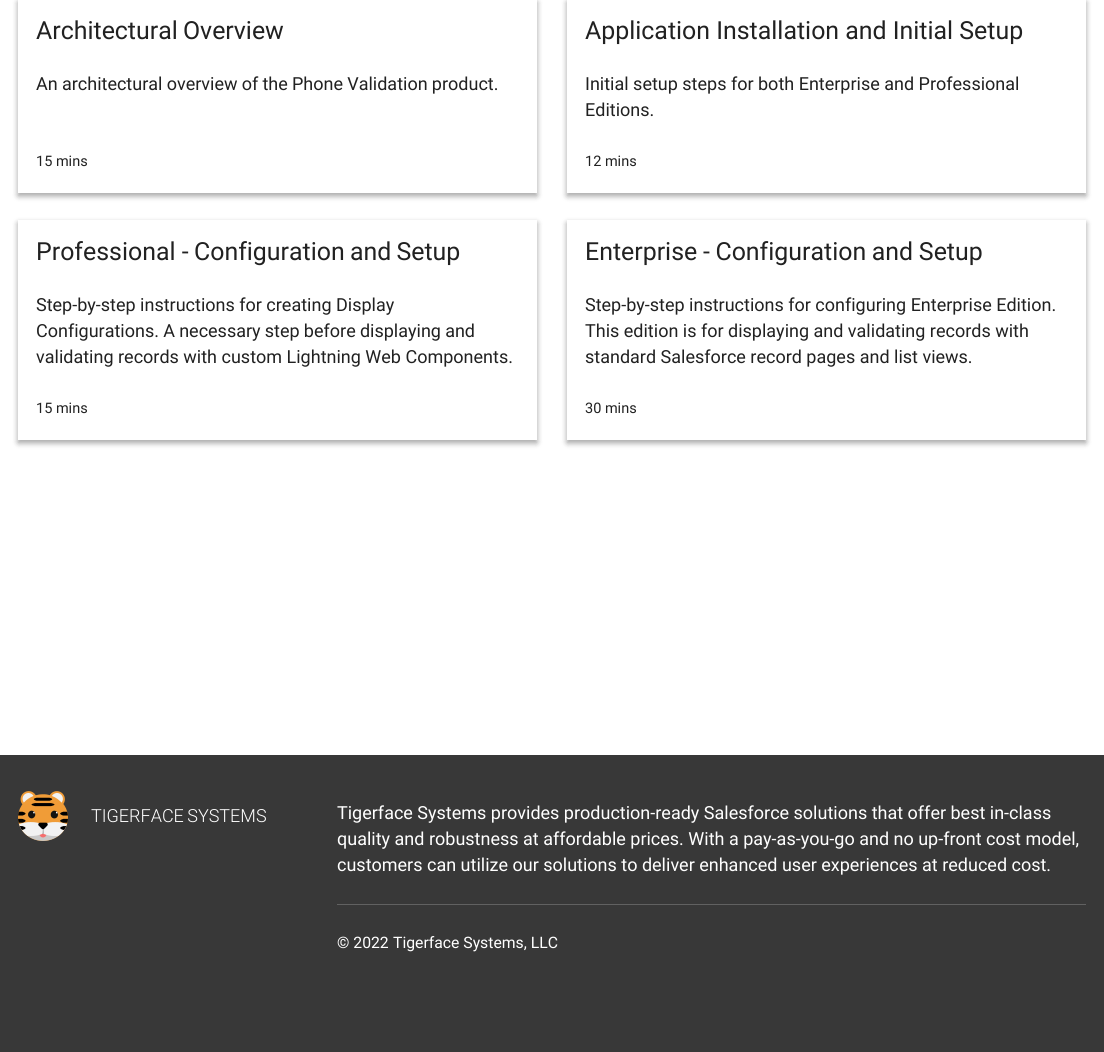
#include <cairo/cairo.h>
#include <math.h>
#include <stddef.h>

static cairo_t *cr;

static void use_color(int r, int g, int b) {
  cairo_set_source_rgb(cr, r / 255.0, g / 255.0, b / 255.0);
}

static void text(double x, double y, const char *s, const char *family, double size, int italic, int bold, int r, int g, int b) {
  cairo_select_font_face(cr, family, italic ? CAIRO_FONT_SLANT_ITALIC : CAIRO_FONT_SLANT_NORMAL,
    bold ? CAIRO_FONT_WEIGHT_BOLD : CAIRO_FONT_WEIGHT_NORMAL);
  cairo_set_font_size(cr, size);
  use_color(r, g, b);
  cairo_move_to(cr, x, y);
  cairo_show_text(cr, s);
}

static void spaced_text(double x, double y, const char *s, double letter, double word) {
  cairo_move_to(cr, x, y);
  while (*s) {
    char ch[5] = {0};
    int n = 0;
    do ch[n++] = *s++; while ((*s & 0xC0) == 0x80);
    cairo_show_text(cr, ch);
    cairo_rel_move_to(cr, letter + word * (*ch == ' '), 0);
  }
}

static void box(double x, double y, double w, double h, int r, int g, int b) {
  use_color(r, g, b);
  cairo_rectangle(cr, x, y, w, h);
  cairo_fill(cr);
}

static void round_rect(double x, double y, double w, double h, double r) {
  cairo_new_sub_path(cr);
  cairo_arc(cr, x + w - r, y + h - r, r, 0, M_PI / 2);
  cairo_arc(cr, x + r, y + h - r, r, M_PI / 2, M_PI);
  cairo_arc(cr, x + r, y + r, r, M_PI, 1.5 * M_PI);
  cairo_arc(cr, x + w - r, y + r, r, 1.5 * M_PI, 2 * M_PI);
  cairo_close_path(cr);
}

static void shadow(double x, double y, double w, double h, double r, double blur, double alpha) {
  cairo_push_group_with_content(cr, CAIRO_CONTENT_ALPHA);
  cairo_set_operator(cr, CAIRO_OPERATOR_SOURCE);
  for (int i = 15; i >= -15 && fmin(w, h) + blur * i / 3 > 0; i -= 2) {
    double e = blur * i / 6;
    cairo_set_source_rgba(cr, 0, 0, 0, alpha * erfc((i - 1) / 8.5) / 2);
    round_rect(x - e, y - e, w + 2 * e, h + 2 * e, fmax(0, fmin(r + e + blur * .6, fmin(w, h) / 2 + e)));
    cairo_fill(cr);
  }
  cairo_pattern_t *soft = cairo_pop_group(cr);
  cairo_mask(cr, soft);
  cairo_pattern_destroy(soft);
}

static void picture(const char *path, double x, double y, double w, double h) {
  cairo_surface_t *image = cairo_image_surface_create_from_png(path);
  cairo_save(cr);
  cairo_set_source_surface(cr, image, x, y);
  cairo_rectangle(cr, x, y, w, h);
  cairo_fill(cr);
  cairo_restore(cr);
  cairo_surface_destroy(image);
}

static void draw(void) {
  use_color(255, 255, 255);
  cairo_paint(cr);
  cairo_save(cr);
  cairo_set_fill_rule(cr, CAIRO_FILL_RULE_EVEN_ODD);
  cairo_new_path(cr);
  cairo_move_to(cr, 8, 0);
  cairo_line_to(cr, 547, 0);
  cairo_line_to(cr, 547, 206);
  cairo_line_to(cr, 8, 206);
  cairo_close_path(cr);
  cairo_move_to(cr, 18, -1);
  cairo_line_to(cr, 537, -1);
  cairo_line_to(cr, 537, 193);
  cairo_line_to(cr, 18, 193);
  cairo_close_path(cr);
  cairo_clip(cr);
  use_color(0, 0, 0);
  shadow(18, 2, 519, 194, 0, 3, 0.23);
  shadow(18, 2, 519, 194, 0, 3, 0.16);
  cairo_restore(cr);
  cairo_save(cr);
  cairo_set_fill_rule(cr, CAIRO_FILL_RULE_EVEN_ODD);
  cairo_new_path(cr);
  cairo_move_to(cr, 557, 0);
  cairo_line_to(cr, 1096, 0);
  cairo_line_to(cr, 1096, 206);
  cairo_line_to(cr, 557, 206);
  cairo_close_path(cr);
  cairo_move_to(cr, 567, -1);
  cairo_line_to(cr, 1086, -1);
  cairo_line_to(cr, 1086, 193);
  cairo_line_to(cr, 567, 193);
  cairo_close_path(cr);
  cairo_clip(cr);
  use_color(0, 0, 0);
  shadow(567, 2, 519, 194, 0, 3, 0.23);
  shadow(567, 2, 519, 194, 0, 3, 0.16);
  cairo_restore(cr);
  cairo_save(cr);
  cairo_set_fill_rule(cr, CAIRO_FILL_RULE_EVEN_ODD);
  cairo_new_path(cr);
  cairo_move_to(cr, 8, 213);
  cairo_line_to(cr, 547, 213);
  cairo_line_to(cr, 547, 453);
  cairo_line_to(cr, 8, 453);
  cairo_close_path(cr);
  cairo_move_to(cr, 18, 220);
  cairo_line_to(cr, 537, 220);
  cairo_line_to(cr, 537, 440);
  cairo_line_to(cr, 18, 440);
  cairo_close_path(cr);
  cairo_clip(cr);
  use_color(0, 0, 0);
  shadow(18, 223, 519, 220, 0, 3, 0.23);
  shadow(18, 223, 519, 220, 0, 3, 0.16);
  cairo_restore(cr);
  cairo_save(cr);
  cairo_set_fill_rule(cr, CAIRO_FILL_RULE_EVEN_ODD);
  cairo_new_path(cr);
  cairo_move_to(cr, 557, 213);
  cairo_line_to(cr, 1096, 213);
  cairo_line_to(cr, 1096, 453);
  cairo_line_to(cr, 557, 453);
  cairo_close_path(cr);
  cairo_move_to(cr, 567, 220);
  cairo_line_to(cr, 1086, 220);
  cairo_line_to(cr, 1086, 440);
  cairo_line_to(cr, 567, 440);
  cairo_close_path(cr);
  cairo_clip(cr);
  use_color(0, 0, 0);
  shadow(567, 223, 519, 220, 0, 3, 0.23);
  shadow(567, 223, 519, 220, 0, 3, 0.16);
  cairo_restore(cr);
  box(0, 755, 1104, 297, 56, 56, 56);
  picture("img_01.png", 18, 791, 50, 50);
  box(337, 904, 749, 1, 97, 97, 97);
  cairo_select_font_face(cr, "Roboto", CAIRO_FONT_SLANT_NORMAL, CAIRO_FONT_WEIGHT_NORMAL);
  cairo_set_font_size(cr, 24.9);
  use_color(33, 33, 33);
  spaced_text(36, 39, "Architectural Overview", 0, -1);
  cairo_set_font_size(cr, 18);
  spaced_text(36, 90, "An architectural overview of the Phone Validation product.", 0, -0.25);
  text(36, 166, "15 mins", "Roboto", 14.5, 0, 0, 33, 33, 33);
  text(585, 39, "Application Installation and Initial Setup", "Roboto", 24.9, 0, 0, 33, 33, 33);
  text(585, 90, "Initial setup steps for both Enterprise and Professional", "Roboto", 18, 0, 0, 33, 33, 33);
  text(585, 116, "Editions.", "Roboto", 18, 0, 0, 33, 33, 33);
  text(585, 166, "12 mins", "Roboto", 14.5, 0, 0, 33, 33, 33);
  text(36, 260, "Professional -", "Roboto", 24.9, 0, 0, 33, 33, 33);
  spaced_text(194, 260, "Configuration and Setup", 0, -1);
  text(36, 311, "Step-by-step instructions for creating Display", "Roboto", 18, 0, 0, 33, 33, 33);
  spaced_text(36, 337, "Configurations. A necessary step before displaying and", 0, -0.25);
  text(36, 363, "validating records with custom Lightning Web Components.", "Roboto", 18, 0, 0, 33, 33, 33);
  text(36, 413, "15 mins", "Roboto", 14.5, 0, 0, 33, 33, 33);
  cairo_set_font_size(cr, 24.9);
  spaced_text(585, 260, "Enterprise - Configuration and Setup", 0, -0.5);
  text(585, 311, "Step-by-step instructions for configuring Enterprise Edition.", "Roboto", 18, 0, 0, 33, 33, 33);
  text(585, 337, "This edition is for displaying and validating records with", "Roboto", 18, 0, 0, 33, 33, 33);
  text(585, 363, "standard Salesforce record pages and list views.", "Roboto", 18, 0, 0, 33, 33, 33);
  text(585, 413, "30 mins", "Roboto", 14.5, 0, 0, 33, 33, 33);
  cairo_select_font_face(cr, "Roboto Light", CAIRO_FONT_SLANT_NORMAL, CAIRO_FONT_WEIGHT_NORMAL);
  cairo_set_font_size(cr, 18);
  use_color(255, 255, 255);
  spaced_text(91, 822, "TIGERFACE SYSTEMS", 0, -1);
  text(337, 819, "Tigerface Systems provides production-ready Salesforce solutions that offer best in-class", "Roboto", 18, 0, 0, 255, 255, 255);
  text(337, 845, "quality and robustness at affordable prices. With a pay-as-you-go and no up-front cost model,", "Roboto", 18, 0, 0, 255, 255, 255);
  text(337, 871, "customers can utilize our solutions to deliver enhanced user experiences at reduced cost.", "Roboto", 18, 0, 0, 255, 255, 255);
  text(337, 948, "© 2022", "Roboto", 15.75, 0, 0, 255, 255, 255);
  text(393, 948, "Tigerface Systems, LLC", "Roboto", 15.75, 0, 0, 255, 255, 255);
}

int main(void) {
  cairo_surface_t *surface = cairo_image_surface_create(CAIRO_FORMAT_RGB24, 1104, 1052);
  cr = cairo_create(surface);
  cairo_font_options_t *options = cairo_font_options_create();
  cairo_font_options_set_hint_metrics(options, CAIRO_HINT_METRICS_OFF);
  cairo_font_options_set_hint_style(options, CAIRO_HINT_STYLE_NONE);
  cairo_set_font_options(cr, options);
  cairo_set_miter_limit(cr, 4);
  draw();
  cairo_surface_write_to_png(surface, "out.png");
  cairo_font_options_destroy(options);
  cairo_destroy(cr);
  cairo_surface_destroy(surface);
  return 0;
}
